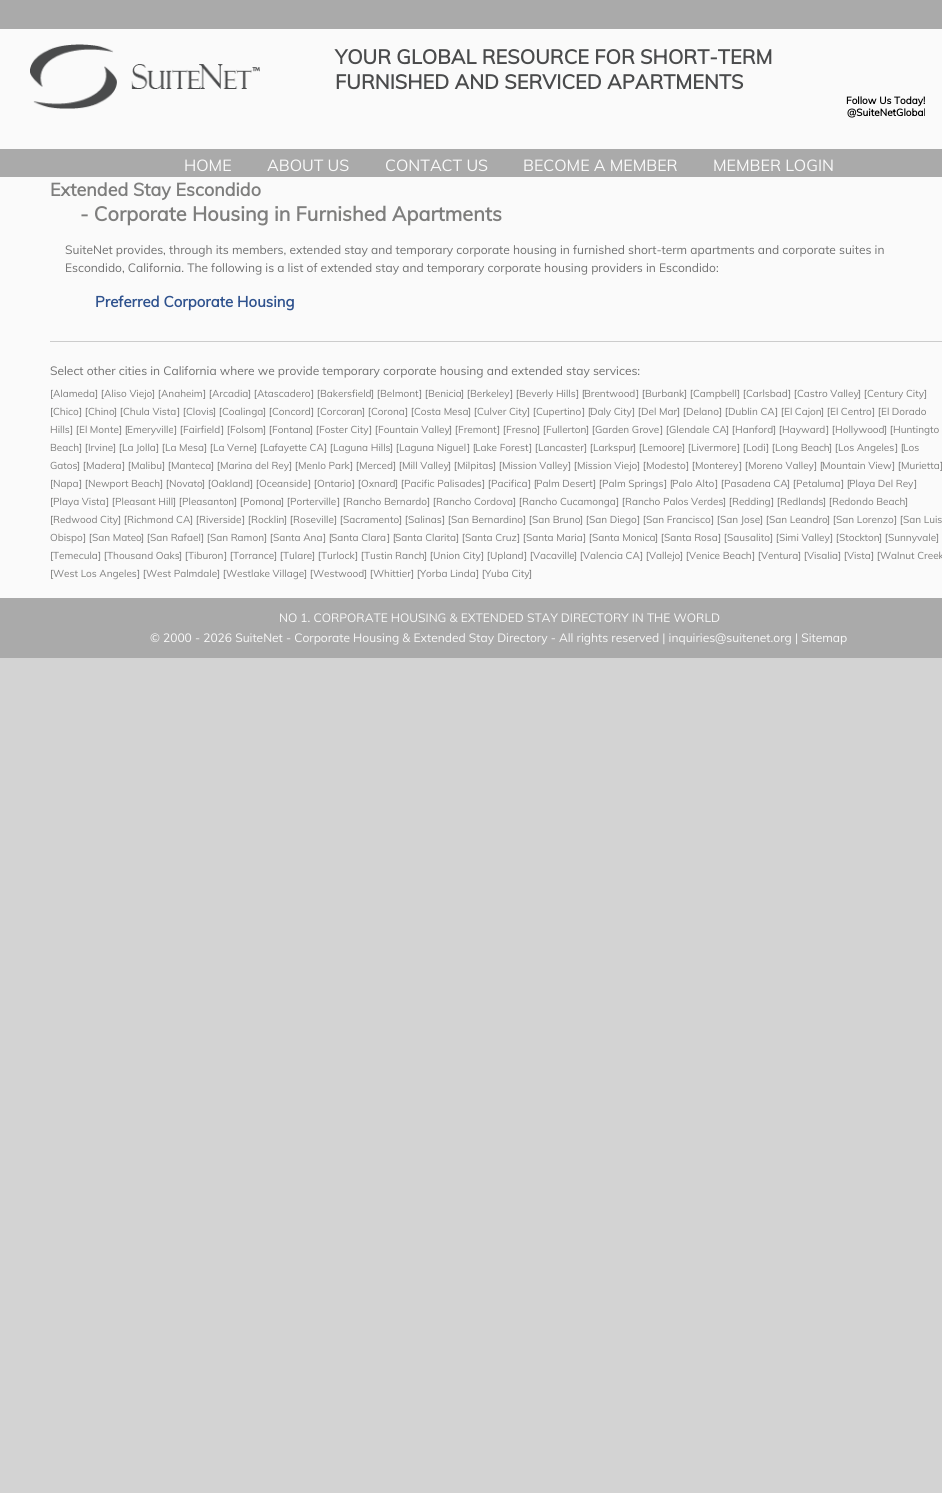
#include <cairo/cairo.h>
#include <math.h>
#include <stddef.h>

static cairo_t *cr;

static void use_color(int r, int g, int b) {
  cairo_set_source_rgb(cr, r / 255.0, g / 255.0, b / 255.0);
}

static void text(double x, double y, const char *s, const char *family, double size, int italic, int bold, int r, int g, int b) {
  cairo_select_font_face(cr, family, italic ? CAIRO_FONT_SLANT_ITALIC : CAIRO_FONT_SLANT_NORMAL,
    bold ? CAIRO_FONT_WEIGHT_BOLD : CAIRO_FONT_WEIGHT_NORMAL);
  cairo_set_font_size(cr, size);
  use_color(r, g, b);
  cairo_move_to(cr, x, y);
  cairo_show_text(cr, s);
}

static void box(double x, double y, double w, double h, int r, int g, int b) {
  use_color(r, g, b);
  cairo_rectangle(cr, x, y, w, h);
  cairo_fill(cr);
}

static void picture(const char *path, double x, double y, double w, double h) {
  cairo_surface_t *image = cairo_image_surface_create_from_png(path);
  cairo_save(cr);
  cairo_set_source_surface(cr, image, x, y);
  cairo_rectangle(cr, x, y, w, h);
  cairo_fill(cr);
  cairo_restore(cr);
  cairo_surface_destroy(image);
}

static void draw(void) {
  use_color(211, 211, 211);
  cairo_paint(cr);
  box(0, 29, 942, 569, 250, 250, 250);
  box(0, 0, 942, 29, 170, 170, 170);
  picture("img_01.png", 30, 44, 230, 65);
  box(0, 149, 942, 28, 170, 170, 170);
  box(50, 341, 892, 1, 204, 204, 204);
  box(0, 598, 942, 60, 170, 170, 170);
  text(335, 64, "YOUR GLOBAL RESOURCE FOR SHORT-TERM", "Muli", 20, 0, 1, 74, 75, 76);
  text(335, 89, "FURNISHED AND SERVICED APARTMENTS", "Muli", 20, 0, 1, 74, 75, 76);
  text(846, 104, "Follow Us Today!", "Muli", 10, 0, 1, 0, 0, 0);
  text(847, 116, "@SuiteNetGlobal", "Muli", 10, 0, 1, 0, 0, 0);
  text(184, 171, "HOME", "Muli", 16, 0, 0, 250, 250, 250);
  text(267, 171, "ABOUT US", "Muli", 16, 0, 0, 250, 250, 250);
  text(385, 171, "CONTACT US", "Muli", 16, 0, 0, 250, 250, 250);
  text(523, 171, "BECOME A MEMBER", "Muli", 16, 0, 0, 250, 250, 250);
  text(713, 171, "MEMBER LOGIN", "Muli", 16, 0, 0, 250, 250, 250);
  text(50, 196, "Extended Stay Escondido", "Muli", 18, 0, 1, 126, 126, 125);
  text(80, 221, "- Corporate Housing in Furnished Apartments", "Muli", 20, 0, 1, 126, 126, 125);
  text(65, 254, "SuiteNet provides, through its members, extended stay and temporary corporate housing in furnished short-term apartments and corporate suites in", "Muli", 12, 0, 0, 112, 112, 112);
  text(65, 272, "Escondido, California. The following is a list of extended stay and temporary corporate housing providers in Escondido:", "Muli", 12, 0, 0, 112, 112, 112);
  text(95, 307, "Preferred Corporate Housing", "Muli", 15, 0, 1, 47, 82, 142);
  text(50, 375, "Select other cities in California where we provide temporary corporate housing and extended stay services:", "Muli", 12, 0, 0, 112, 112, 112);
  text(50, 397, "[", "Muli", 10, 0, 0, 112, 112, 112);
  text(53, 397, "Alameda", "Muli", 10, 0, 0, 126, 126, 125);
  text(95, 397, "] [", "Muli", 10, 0, 0, 112, 112, 112);
  text(104, 397, "Aliso Viejo", "Muli", 10, 0, 0, 126, 126, 125);
  text(152, 397, "] [", "Muli", 10, 0, 0, 112, 112, 112);
  text(161, 397, "Anaheim", "Muli", 10, 0, 0, 126, 126, 125);
  text(203, 397, "] [", "Muli", 10, 0, 0, 112, 112, 112);
  text(212, 397, "Arcadia", "Muli", 10, 0, 0, 126, 126, 125);
  text(248, 397, "] [", "Muli", 10, 0, 0, 112, 112, 112);
  text(257, 397, "Atascadero", "Muli", 10, 0, 0, 126, 126, 125);
  text(311, 397, "] [", "Muli", 10, 0, 0, 112, 112, 112);
  text(320, 397, "Bakersfield", "Muli", 10, 0, 0, 126, 126, 125);
  text(371, 397, "] [", "Muli", 10, 0, 0, 112, 112, 112);
  text(380, 397, "Belmont", "Muli", 10, 0, 0, 126, 126, 125);
  text(419, 397, "] [", "Muli", 10, 0, 0, 112, 112, 112);
  text(428, 397, "Benicia", "Muli", 10, 0, 0, 126, 126, 125);
  text(461, 397, "] [", "Muli", 10, 0, 0, 112, 112, 112);
  text(470, 397, "Berkeley", "Muli", 10, 0, 0, 126, 126, 125);
  text(510, 397, "] [", "Muli", 10, 0, 0, 112, 112, 112);
  text(519, 397, "Beverly Hills", "Muli", 10, 0, 0, 126, 126, 125);
  text(576, 397, "] [", "Muli", 10, 0, 0, 112, 112, 112);
  text(584, 397, "Brentwood", "Muli", 10, 0, 0, 126, 126, 125);
  text(636, 397, "] [", "Muli", 10, 0, 0, 112, 112, 112);
  text(645, 397, "Burbank", "Muli", 10, 0, 0, 126, 126, 125);
  text(684, 397, "] [", "Muli", 10, 0, 0, 112, 112, 112);
  text(693, 397, "Campbell", "Muli", 10, 0, 0, 126, 126, 125);
  text(737, 397, "] [", "Muli", 10, 0, 0, 112, 112, 112);
  text(746, 397, "Carlsbad", "Muli", 10, 0, 0, 126, 126, 125);
  text(788, 397, "] [", "Muli", 10, 0, 0, 112, 112, 112);
  text(797, 397, "Castro Valley", "Muli", 10, 0, 0, 126, 126, 125);
  text(858, 397, "] [", "Muli", 10, 0, 0, 112, 112, 112);
  text(867, 397, "Century City", "Muli", 10, 0, 0, 126, 126, 125);
  text(924, 397, "]", "Muli", 10, 0, 0, 112, 112, 112);
  text(50, 415, "[", "Muli", 10, 0, 0, 112, 112, 112);
  text(53, 415, "Chico", "Muli", 10, 0, 0, 126, 126, 125);
  text(79, 415, "] [", "Muli", 10, 0, 0, 112, 112, 112);
  text(88, 415, "Chino", "Muli", 10, 0, 0, 126, 126, 125);
  text(114, 415, "] [", "Muli", 10, 0, 0, 112, 112, 112);
  text(123, 415, "Chula Vista", "Muli", 10, 0, 0, 126, 126, 125);
  text(177, 415, "] [", "Muli", 10, 0, 0, 112, 112, 112);
  text(186, 415, "Clovis", "Muli", 10, 0, 0, 126, 126, 125);
  text(213, 415, "] [", "Muli", 10, 0, 0, 112, 112, 112);
  text(222, 415, "Coalinga", "Muli", 10, 0, 0, 126, 126, 125);
  text(263, 415, "] [", "Muli", 10, 0, 0, 112, 112, 112);
  text(272, 415, "Concord", "Muli", 10, 0, 0, 126, 126, 125);
  text(311, 415, "] [", "Muli", 10, 0, 0, 112, 112, 112);
  text(320, 415, "Corcoran", "Muli", 10, 0, 0, 126, 126, 125);
  text(362, 415, "] [", "Muli", 10, 0, 0, 112, 112, 112);
  text(371, 415, "Corona", "Muli", 10, 0, 0, 126, 126, 125);
  text(405, 415, "] [", "Muli", 10, 0, 0, 112, 112, 112);
  text(414, 415, "Costa Mesa", "Muli", 10, 0, 0, 126, 126, 125);
  text(468, 415, "] [", "Muli", 10, 0, 0, 112, 112, 112);
  text(477, 415, "Culver City", "Muli", 10, 0, 0, 126, 126, 125);
  text(527, 415, "] [", "Muli", 10, 0, 0, 112, 112, 112);
  text(536, 415, "Cupertino", "Muli", 10, 0, 0, 126, 126, 125);
  text(582, 415, "] [", "Muli", 10, 0, 0, 112, 112, 112);
  text(590, 415, "Daly City", "Muli", 10, 0, 0, 126, 126, 125);
  text(632, 415, "] [", "Muli", 10, 0, 0, 112, 112, 112);
  text(641, 415, "Del Mar", "Muli", 10, 0, 0, 126, 126, 125);
  text(677, 415, "] [", "Muli", 10, 0, 0, 112, 112, 112);
  text(686, 415, "Delano", "Muli", 10, 0, 0, 126, 126, 125);
  text(719, 415, "] [", "Muli", 10, 0, 0, 112, 112, 112);
  text(728, 415, "Dublin CA", "Muli", 10, 0, 0, 126, 126, 125);
  text(775, 415, "] [", "Muli", 10, 0, 0, 112, 112, 112);
  text(784, 415, "El Cajon", "Muli", 10, 0, 0, 126, 126, 125);
  text(821, 415, "] [", "Muli", 10, 0, 0, 112, 112, 112);
  text(830, 415, "El Centro", "Muli", 10, 0, 0, 126, 126, 125);
  text(872, 415, "] [", "Muli", 10, 0, 0, 112, 112, 112);
  text(881, 415, "El Dorado", "Muli", 10, 0, 0, 126, 126, 125);
  text(50, 433, "Hills", "Muli", 10, 0, 0, 126, 126, 125);
  text(70, 433, "] [", "Muli", 10, 0, 0, 112, 112, 112);
  text(79, 433, "El Monte", "Muli", 10, 0, 0, 126, 126, 125);
  text(119, 433, "] [", "Muli", 10, 0, 0, 112, 112, 112);
  text(127, 433, "Emeryville", "Muli", 10, 0, 0, 126, 126, 125);
  text(174, 433, "] [", "Muli", 10, 0, 0, 112, 112, 112);
  text(183, 433, "Fairfield", "Muli", 10, 0, 0, 126, 126, 125);
  text(221, 433, "] [", "Muli", 10, 0, 0, 112, 112, 112);
  text(230, 433, "Folsom", "Muli", 10, 0, 0, 126, 126, 125);
  text(263, 433, "] [", "Muli", 10, 0, 0, 112, 112, 112);
  text(272, 433, "Fontana", "Muli", 10, 0, 0, 126, 126, 125);
  text(310, 433, "] [", "Muli", 10, 0, 0, 112, 112, 112);
  text(319, 433, "Foster City", "Muli", 10, 0, 0, 126, 126, 125);
  text(369, 433, "] [", "Muli", 10, 0, 0, 112, 112, 112);
  text(378, 433, "Fountain Valley", "Muli", 10, 0, 0, 126, 126, 125);
  text(449, 433, "] [", "Muli", 10, 0, 0, 112, 112, 112);
  text(458, 433, "Fremont", "Muli", 10, 0, 0, 126, 126, 125);
  text(497, 433, "] [", "Muli", 10, 0, 0, 112, 112, 112);
  text(506, 433, "Fresno", "Muli", 10, 0, 0, 126, 126, 125);
  text(537, 433, "] [", "Muli", 10, 0, 0, 112, 112, 112);
  text(546, 433, "Fullerton", "Muli", 10, 0, 0, 126, 126, 125);
  text(586, 433, "] [", "Muli", 10, 0, 0, 112, 112, 112);
  text(595, 433, "Garden Grove", "Muli", 10, 0, 0, 126, 126, 125);
  text(660, 433, "] [", "Muli", 10, 0, 0, 112, 112, 112);
  text(669, 433, "Glendale CA", "Muli", 10, 0, 0, 126, 126, 125);
  text(726, 433, "] [", "Muli", 10, 0, 0, 112, 112, 112);
  text(735, 433, "Hanford", "Muli", 10, 0, 0, 126, 126, 125);
  text(773, 433, "] [", "Muli", 10, 0, 0, 112, 112, 112);
  text(782, 433, "Hayward", "Muli", 10, 0, 0, 126, 126, 125);
  text(826, 433, "] [", "Muli", 10, 0, 0, 112, 112, 112);
  text(835, 433, "Hollywood", "Muli", 10, 0, 0, 126, 126, 125);
  text(884, 433, "] [", "Muli", 10, 0, 0, 112, 112, 112);
  text(893, 433, "Huntingto", "Muli", 10, 0, 0, 126, 126, 125);
  text(50, 451, "Beach", "Muli", 10, 0, 0, 126, 126, 125);
  text(79, 451, "] [", "Muli", 10, 0, 0, 112, 112, 112);
  text(88, 451, "Irvine", "Muli", 10, 0, 0, 126, 126, 125);
  text(113, 451, "] [", "Muli", 10, 0, 0, 112, 112, 112);
  text(122, 451, "La Jolla", "Muli", 10, 0, 0, 126, 126, 125);
  text(156, 451, "] [", "Muli", 10, 0, 0, 112, 112, 112);
  text(165, 451, "La Mesa", "Muli", 10, 0, 0, 126, 126, 125);
  text(204, 451, "] [", "Muli", 10, 0, 0, 112, 112, 112);
  text(213, 451, "La Verne", "Muli", 10, 0, 0, 126, 126, 125);
  text(254, 451, "] [", "Muli", 10, 0, 0, 112, 112, 112);
  text(263, 451, "Lafayette CA", "Muli", 10, 0, 0, 126, 126, 125);
  text(324, 451, "] [", "Muli", 10, 0, 0, 112, 112, 112);
  text(333, 451, "Laguna Hills", "Muli", 10, 0, 0, 126, 126, 125);
  text(390, 451, "] [", "Muli", 10, 0, 0, 112, 112, 112);
  text(399, 451, "Laguna Niguel", "Muli", 10, 0, 0, 126, 126, 125);
  text(467, 451, "] [", "Muli", 10, 0, 0, 112, 112, 112);
  text(475, 451, "Lake Forest", "Muli", 10, 0, 0, 126, 126, 125);
  text(529, 451, "] [", "Muli", 10, 0, 0, 112, 112, 112);
  text(538, 451, "Lancaster", "Muli", 10, 0, 0, 126, 126, 125);
  text(584, 451, "] [", "Muli", 10, 0, 0, 112, 112, 112);
  text(593, 451, "Larkspur", "Muli", 10, 0, 0, 126, 126, 125);
  text(633, 451, "] [", "Muli", 10, 0, 0, 112, 112, 112);
  text(642, 451, "Lemoore", "Muli", 10, 0, 0, 126, 126, 125);
  text(682, 451, "] [", "Muli", 10, 0, 0, 112, 112, 112);
  text(691, 451, "Livermore", "Muli", 10, 0, 0, 126, 126, 125);
  text(737, 451, "] [", "Muli", 10, 0, 0, 112, 112, 112);
  text(746, 451, "Lodi", "Muli", 10, 0, 0, 126, 126, 125);
  text(766, 451, "] [", "Muli", 10, 0, 0, 112, 112, 112);
  text(775, 451, "Long Beach", "Muli", 10, 0, 0, 126, 126, 125);
  text(829, 451, "] [", "Muli", 10, 0, 0, 112, 112, 112);
  text(838, 451, "Los Angeles", "Muli", 10, 0, 0, 126, 126, 125);
  text(895, 451, "] [", "Muli", 10, 0, 0, 112, 112, 112);
  text(903, 451, "Los", "Muli", 10, 0, 0, 126, 126, 125);
  text(50, 469, "Gatos", "Muli", 10, 0, 0, 126, 126, 125);
  text(77, 469, "] [", "Muli", 10, 0, 0, 112, 112, 112);
  text(86, 469, "Madera", "Muli", 10, 0, 0, 126, 126, 125);
  text(122, 469, "] [", "Muli", 10, 0, 0, 112, 112, 112);
  text(131, 469, "Malibu", "Muli", 10, 0, 0, 126, 126, 125);
  text(162, 469, "] [", "Muli", 10, 0, 0, 112, 112, 112);
  text(171, 469, "Manteca", "Muli", 10, 0, 0, 126, 126, 125);
  text(211, 469, "] [", "Muli", 10, 0, 0, 112, 112, 112);
  text(220, 469, "Marina del Rey", "Muli", 10, 0, 0, 126, 126, 125);
  text(289, 469, "] [", "Muli", 10, 0, 0, 112, 112, 112);
  text(298, 469, "Menlo Park", "Muli", 10, 0, 0, 126, 126, 125);
  text(350, 469, "] [", "Muli", 10, 0, 0, 112, 112, 112);
  text(359, 469, "Merced", "Muli", 10, 0, 0, 126, 126, 125);
  text(393, 469, "] [", "Muli", 10, 0, 0, 112, 112, 112);
  text(402, 469, "Mill Valley", "Muli", 10, 0, 0, 126, 126, 125);
  text(448, 469, "] [", "Muli", 10, 0, 0, 112, 112, 112);
  text(457, 469, "Milpitas", "Muli", 10, 0, 0, 126, 126, 125);
  text(493, 469, "] [", "Muli", 10, 0, 0, 112, 112, 112);
  text(502, 469, "Mission Valley", "Muli", 10, 0, 0, 126, 126, 125);
  text(568, 469, "] [", "Muli", 10, 0, 0, 112, 112, 112);
  text(577, 469, "Mission Viejo", "Muli", 10, 0, 0, 126, 126, 125);
  text(637, 469, "] [", "Muli", 10, 0, 0, 112, 112, 112);
  text(646, 469, "Modesto", "Muli", 10, 0, 0, 126, 126, 125);
  text(686, 469, "] [", "Muli", 10, 0, 0, 112, 112, 112);
  text(695, 469, "Monterey", "Muli", 10, 0, 0, 126, 126, 125);
  text(739, 469, "] [", "Muli", 10, 0, 0, 112, 112, 112);
  text(748, 469, "Moreno Valley", "Muli", 10, 0, 0, 126, 126, 125);
  text(814, 469, "] [", "Muli", 10, 0, 0, 112, 112, 112);
  text(822, 469, "Mountain View", "Muli", 10, 0, 0, 126, 126, 125);
  text(892, 469, "] [", "Muli", 10, 0, 0, 112, 112, 112);
  text(901, 469, "Murietta", "Muli", 10, 0, 0, 126, 126, 125);
  text(940, 469, "]", "Muli", 10, 0, 0, 112, 112, 112);
  text(50, 487, "[", "Muli", 10, 0, 0, 112, 112, 112);
  text(53, 487, "Napa", "Muli", 10, 0, 0, 126, 126, 125);
  text(79, 487, "] [", "Muli", 10, 0, 0, 112, 112, 112);
  text(88, 487, "Newport Beach", "Muli", 10, 0, 0, 126, 126, 125);
  text(160, 487, "] [", "Muli", 10, 0, 0, 112, 112, 112);
  text(169, 487, "Novato", "Muli", 10, 0, 0, 126, 126, 125);
  text(202, 487, "] [", "Muli", 10, 0, 0, 112, 112, 112);
  text(211, 487, "Oakland", "Muli", 10, 0, 0, 126, 126, 125);
  text(250, 487, "] [", "Muli", 10, 0, 0, 112, 112, 112);
  text(259, 487, "Oceanside", "Muli", 10, 0, 0, 126, 126, 125);
  text(308, 487, "] [", "Muli", 10, 0, 0, 112, 112, 112);
  text(317, 487, "Ontario", "Muli", 10, 0, 0, 126, 126, 125);
  text(352, 487, "] [", "Muli", 10, 0, 0, 112, 112, 112);
  text(361, 487, "Oxnard", "Muli", 10, 0, 0, 126, 126, 125);
  text(395, 487, "] [", "Muli", 10, 0, 0, 112, 112, 112);
  text(404, 487, "Pacific Palisades", "Muli", 10, 0, 0, 126, 126, 125);
  text(482, 487, "] [", "Muli", 10, 0, 0, 112, 112, 112);
  text(491, 487, "Pacifica", "Muli", 10, 0, 0, 126, 126, 125);
  text(528, 487, "] [", "Muli", 10, 0, 0, 112, 112, 112);
  text(536, 487, "Palm Desert", "Muli", 10, 0, 0, 126, 126, 125);
  text(593, 487, "] [", "Muli", 10, 0, 0, 112, 112, 112);
  text(602, 487, "Palm Springs", "Muli", 10, 0, 0, 126, 126, 125);
  text(664, 487, "] [", "Muli", 10, 0, 0, 112, 112, 112);
  text(672, 487, "Palo Alto", "Muli", 10, 0, 0, 126, 126, 125);
  text(715, 487, "] [", "Muli", 10, 0, 0, 112, 112, 112);
  text(724, 487, "Pasadena CA", "Muli", 10, 0, 0, 126, 126, 125);
  text(787, 487, "] [", "Muli", 10, 0, 0, 112, 112, 112);
  text(796, 487, "Petaluma", "Muli", 10, 0, 0, 126, 126, 125);
  text(841, 487, "] [", "Muli", 10, 0, 0, 112, 112, 112);
  text(849, 487, "Playa Del Rey", "Muli", 10, 0, 0, 126, 126, 125);
  text(914, 487, "]", "Muli", 10, 0, 0, 112, 112, 112);
  text(50, 505, "[", "Muli", 10, 0, 0, 112, 112, 112);
  text(53, 505, "Playa Vista", "Muli", 10, 0, 0, 126, 126, 125);
  text(106, 505, "] [", "Muli", 10, 0, 0, 112, 112, 112);
  text(115, 505, "Pleasant Hill", "Muli", 10, 0, 0, 126, 126, 125);
  text(173, 505, "] [", "Muli", 10, 0, 0, 112, 112, 112);
  text(182, 505, "Pleasanton", "Muli", 10, 0, 0, 126, 126, 125);
  text(234, 505, "] [", "Muli", 10, 0, 0, 112, 112, 112);
  text(243, 505, "Pomona", "Muli", 10, 0, 0, 126, 126, 125);
  text(281, 505, "] [", "Muli", 10, 0, 0, 112, 112, 112);
  text(290, 505, "Porterville", "Muli", 10, 0, 0, 126, 126, 125);
  text(337, 505, "] [", "Muli", 10, 0, 0, 112, 112, 112);
  text(346, 505, "Rancho Bernardo", "Muli", 10, 0, 0, 126, 126, 125);
  text(427, 505, "] [", "Muli", 10, 0, 0, 112, 112, 112);
  text(436, 505, "Rancho Cordova", "Muli", 10, 0, 0, 126, 126, 125);
  text(513, 505, "] [", "Muli", 10, 0, 0, 112, 112, 112);
  text(522, 505, "Rancho Cucamonga", "Muli", 10, 0, 0, 126, 126, 125);
  text(616, 505, "] [", "Muli", 10, 0, 0, 112, 112, 112);
  text(625, 505, "Rancho Palos Verdes", "Muli", 10, 0, 0, 126, 126, 125);
  text(723, 505, "] [", "Muli", 10, 0, 0, 112, 112, 112);
  text(732, 505, "Redding", "Muli", 10, 0, 0, 126, 126, 125);
  text(771, 505, "] [", "Muli", 10, 0, 0, 112, 112, 112);
  text(780, 505, "Redlands", "Muli", 10, 0, 0, 126, 126, 125);
  text(823, 505, "] [", "Muli", 10, 0, 0, 112, 112, 112);
  text(832, 505, "Redondo Beach", "Muli", 10, 0, 0, 126, 126, 125);
  text(905, 505, "]", "Muli", 10, 0, 0, 112, 112, 112);
  text(50, 523, "[", "Muli", 10, 0, 0, 112, 112, 112);
  text(53, 523, "Redwood City", "Muli", 10, 0, 0, 126, 126, 125);
  text(118, 523, "] [", "Muli", 10, 0, 0, 112, 112, 112);
  text(127, 523, "Richmond CA", "Muli", 10, 0, 0, 126, 126, 125);
  text(190, 523, "] [", "Muli", 10, 0, 0, 112, 112, 112);
  text(199, 523, "Riverside", "Muli", 10, 0, 0, 126, 126, 125);
  text(242, 523, "] [", "Muli", 10, 0, 0, 112, 112, 112);
  text(251, 523, "Rocklin", "Muli", 10, 0, 0, 126, 126, 125);
  text(284, 523, "] [", "Muli", 10, 0, 0, 112, 112, 112);
  text(293, 523, "Roseville", "Muli", 10, 0, 0, 126, 126, 125);
  text(334, 523, "] [", "Muli", 10, 0, 0, 112, 112, 112);
  text(343, 523, "Sacramento", "Muli", 10, 0, 0, 126, 126, 125);
  text(399, 523, "] [", "Muli", 10, 0, 0, 112, 112, 112);
  text(408, 523, "Salinas", "Muli", 10, 0, 0, 126, 126, 125);
  text(442, 523, "] [", "Muli", 10, 0, 0, 112, 112, 112);
  text(451, 523, "San Bernardino", "Muli", 10, 0, 0, 126, 126, 125);
  text(523, 523, "] [", "Muli", 10, 0, 0, 112, 112, 112);
  text(532, 523, "San Bruno", "Muli", 10, 0, 0, 126, 126, 125);
  text(580, 523, "] [", "Muli", 10, 0, 0, 112, 112, 112);
  text(589, 523, "San Diego", "Muli", 10, 0, 0, 126, 126, 125);
  text(637, 523, "] [", "Muli", 10, 0, 0, 112, 112, 112);
  text(646, 523, "San Francisco", "Muli", 10, 0, 0, 126, 126, 125);
  text(711, 523, "] [", "Muli", 10, 0, 0, 112, 112, 112);
  text(720, 523, "San Jose", "Muli", 10, 0, 0, 126, 126, 125);
  text(760, 523, "] [", "Muli", 10, 0, 0, 112, 112, 112);
  text(769, 523, "San Leandro", "Muli", 10, 0, 0, 126, 126, 125);
  text(827, 523, "] [", "Muli", 10, 0, 0, 112, 112, 112);
  text(836, 523, "San Lorenzo", "Muli", 10, 0, 0, 126, 126, 125);
  text(894, 523, "] [", "Muli", 10, 0, 0, 112, 112, 112);
  text(903, 523, "San Luis", "Muli", 10, 0, 0, 126, 126, 125);
  text(50, 541, "Obispo", "Muli", 10, 0, 0, 126, 126, 125);
  text(83, 541, "] [", "Muli", 10, 0, 0, 112, 112, 112);
  text(92, 541, "San Mateo", "Muli", 10, 0, 0, 126, 126, 125);
  text(141, 541, "] [", "Muli", 10, 0, 0, 112, 112, 112);
  text(150, 541, "San Rafael", "Muli", 10, 0, 0, 126, 126, 125);
  text(201, 541, "] [", "Muli", 10, 0, 0, 112, 112, 112);
  text(210, 541, "San Ramon", "Muli", 10, 0, 0, 126, 126, 125);
  text(264, 541, "] [", "Muli", 10, 0, 0, 112, 112, 112);
  text(273, 541, "Santa Ana", "Muli", 10, 0, 0, 126, 126, 125);
  text(323, 541, "] [", "Muli", 10, 0, 0, 112, 112, 112);
  text(331, 541, "Santa Clara", "Muli", 10, 0, 0, 126, 126, 125);
  text(387, 541, "] [", "Muli", 10, 0, 0, 112, 112, 112);
  text(395, 541, "Santa Clarita", "Muli", 10, 0, 0, 126, 126, 125);
  text(456, 541, "] [", "Muli", 10, 0, 0, 112, 112, 112);
  text(465, 541, "Santa Cruz", "Muli", 10, 0, 0, 126, 126, 125);
  text(517, 541, "] [", "Muli", 10, 0, 0, 112, 112, 112);
  text(526, 541, "Santa Maria", "Muli", 10, 0, 0, 126, 126, 125);
  text(583, 541, "] [", "Muli", 10, 0, 0, 112, 112, 112);
  text(592, 541, "Santa Monica", "Muli", 10, 0, 0, 126, 126, 125);
  text(655, 541, "] [", "Muli", 10, 0, 0, 112, 112, 112);
  text(664, 541, "Santa Rosa", "Muli", 10, 0, 0, 126, 126, 125);
  text(718, 541, "] [", "Muli", 10, 0, 0, 112, 112, 112);
  text(727, 541, "Sausalito", "Muli", 10, 0, 0, 126, 126, 125);
  text(770, 541, "] [", "Muli", 10, 0, 0, 112, 112, 112);
  text(779, 541, "Simi Valley", "Muli", 10, 0, 0, 126, 126, 125);
  text(830, 541, "] [", "Muli", 10, 0, 0, 112, 112, 112);
  text(839, 541, "Stockton", "Muli", 10, 0, 0, 126, 126, 125);
  text(879, 541, "] [", "Muli", 10, 0, 0, 112, 112, 112);
  text(888, 541, "Sunnyvale", "Muli", 10, 0, 0, 126, 126, 125);
  text(936, 541, "]", "Muli", 10, 0, 0, 112, 112, 112);
  text(50, 559, "[", "Muli", 10, 0, 0, 112, 112, 112);
  text(53, 559, "Temecula", "Muli", 10, 0, 0, 126, 126, 125);
  text(98, 559, "] [", "Muli", 10, 0, 0, 112, 112, 112);
  text(107, 559, "Thousand Oaks", "Muli", 10, 0, 0, 126, 126, 125);
  text(179, 559, "] [", "Muli", 10, 0, 0, 112, 112, 112);
  text(188, 559, "Tiburon", "Muli", 10, 0, 0, 126, 126, 125);
  text(224, 559, "] [", "Muli", 10, 0, 0, 112, 112, 112);
  text(233, 559, "Torrance", "Muli", 10, 0, 0, 126, 126, 125);
  text(274, 559, "] [", "Muli", 10, 0, 0, 112, 112, 112);
  text(283, 559, "Tulare", "Muli", 10, 0, 0, 126, 126, 125);
  text(312, 559, "] [", "Muli", 10, 0, 0, 112, 112, 112);
  text(321, 559, "Turlock", "Muli", 10, 0, 0, 126, 126, 125);
  text(355, 559, "] [", "Muli", 10, 0, 0, 112, 112, 112);
  text(364, 559, "Tustin Ranch", "Muli", 10, 0, 0, 126, 126, 125);
  text(424, 559, "] [", "Muli", 10, 0, 0, 112, 112, 112);
  text(433, 559, "Union City", "Muli", 10, 0, 0, 126, 126, 125);
  text(481, 559, "] [", "Muli", 10, 0, 0, 112, 112, 112);
  text(490, 559, "Upland", "Muli", 10, 0, 0, 126, 126, 125);
  text(524, 559, "] [", "Muli", 10, 0, 0, 112, 112, 112);
  text(533, 559, "Vacaville", "Muli", 10, 0, 0, 126, 126, 125);
  text(574, 559, "] [", "Muli", 10, 0, 0, 112, 112, 112);
  text(583, 559, "Valencia CA", "Muli", 10, 0, 0, 126, 126, 125);
  text(640, 559, "] [", "Muli", 10, 0, 0, 112, 112, 112);
  text(649, 559, "Vallejo", "Muli", 10, 0, 0, 126, 126, 125);
  text(680, 559, "] [", "Muli", 10, 0, 0, 112, 112, 112);
  text(689, 559, "Venice Beach", "Muli", 10, 0, 0, 126, 126, 125);
  text(752, 559, "] [", "Muli", 10, 0, 0, 112, 112, 112);
  text(761, 559, "Ventura", "Muli", 10, 0, 0, 126, 126, 125);
  text(798, 559, "] [", "Muli", 10, 0, 0, 112, 112, 112);
  text(807, 559, "Visalia", "Muli", 10, 0, 0, 126, 126, 125);
  text(838, 559, "] [", "Muli", 10, 0, 0, 112, 112, 112);
  text(847, 559, "Vista", "Muli", 10, 0, 0, 126, 126, 125);
  text(871, 559, "] [", "Muli", 10, 0, 0, 112, 112, 112);
  text(880, 559, "Walnut Creek", "Muli", 10, 0, 0, 126, 126, 125);
  text(50, 577, "[", "Muli", 10, 0, 0, 112, 112, 112);
  text(53, 577, "West Los Angeles", "Muli", 10, 0, 0, 126, 126, 125);
  text(137, 577, "] [", "Muli", 10, 0, 0, 112, 112, 112);
  text(146, 577, "West Palmdale", "Muli", 10, 0, 0, 126, 126, 125);
  text(217, 577, "] [", "Muli", 10, 0, 0, 112, 112, 112);
  text(226, 577, "Westlake Village", "Muli", 10, 0, 0, 126, 126, 125);
  text(304, 577, "] [", "Muli", 10, 0, 0, 112, 112, 112);
  text(313, 577, "Westwood", "Muli", 10, 0, 0, 126, 126, 125);
  text(364, 577, "] [", "Muli", 10, 0, 0, 112, 112, 112);
  text(373, 577, "Whittier", "Muli", 10, 0, 0, 126, 126, 125);
  text(411, 577, "] [", "Muli", 10, 0, 0, 112, 112, 112);
  text(420, 577, "Yorba Linda", "Muli", 10, 0, 0, 126, 126, 125);
  text(476, 577, "] [", "Muli", 10, 0, 0, 112, 112, 112);
  text(485, 577, "Yuba City", "Muli", 10, 0, 0, 126, 126, 125);
  text(529, 577, "]", "Muli", 10, 0, 0, 112, 112, 112);
  text(279, 622, "NO 1. CORPORATE HOUSING & EXTENDED STAY DIRECTORY IN THE WORLD", "Muli", 12, 0, 0, 250, 250, 250);
  text(150, 642, "© 2000 - 2026 SuiteNet - Corporate Housing & Extended Stay Directory - All rights reserved | inquiries@suitenet.org | Sitemap", "Muli", 12, 0, 0, 250, 250, 250);
}

int main(void) {
  cairo_surface_t *surface = cairo_image_surface_create(CAIRO_FORMAT_RGB24, 942, 1493);
  cr = cairo_create(surface);
  cairo_font_options_t *options = cairo_font_options_create();
  cairo_font_options_set_hint_metrics(options, CAIRO_HINT_METRICS_OFF);
  cairo_font_options_set_hint_style(options, CAIRO_HINT_STYLE_NONE);
  cairo_set_font_options(cr, options);
  cairo_set_miter_limit(cr, 4);
  draw();
  cairo_surface_write_to_png(surface, "out.png");
  cairo_font_options_destroy(options);
  cairo_destroy(cr);
  cairo_surface_destroy(surface);
  return 0;
}
